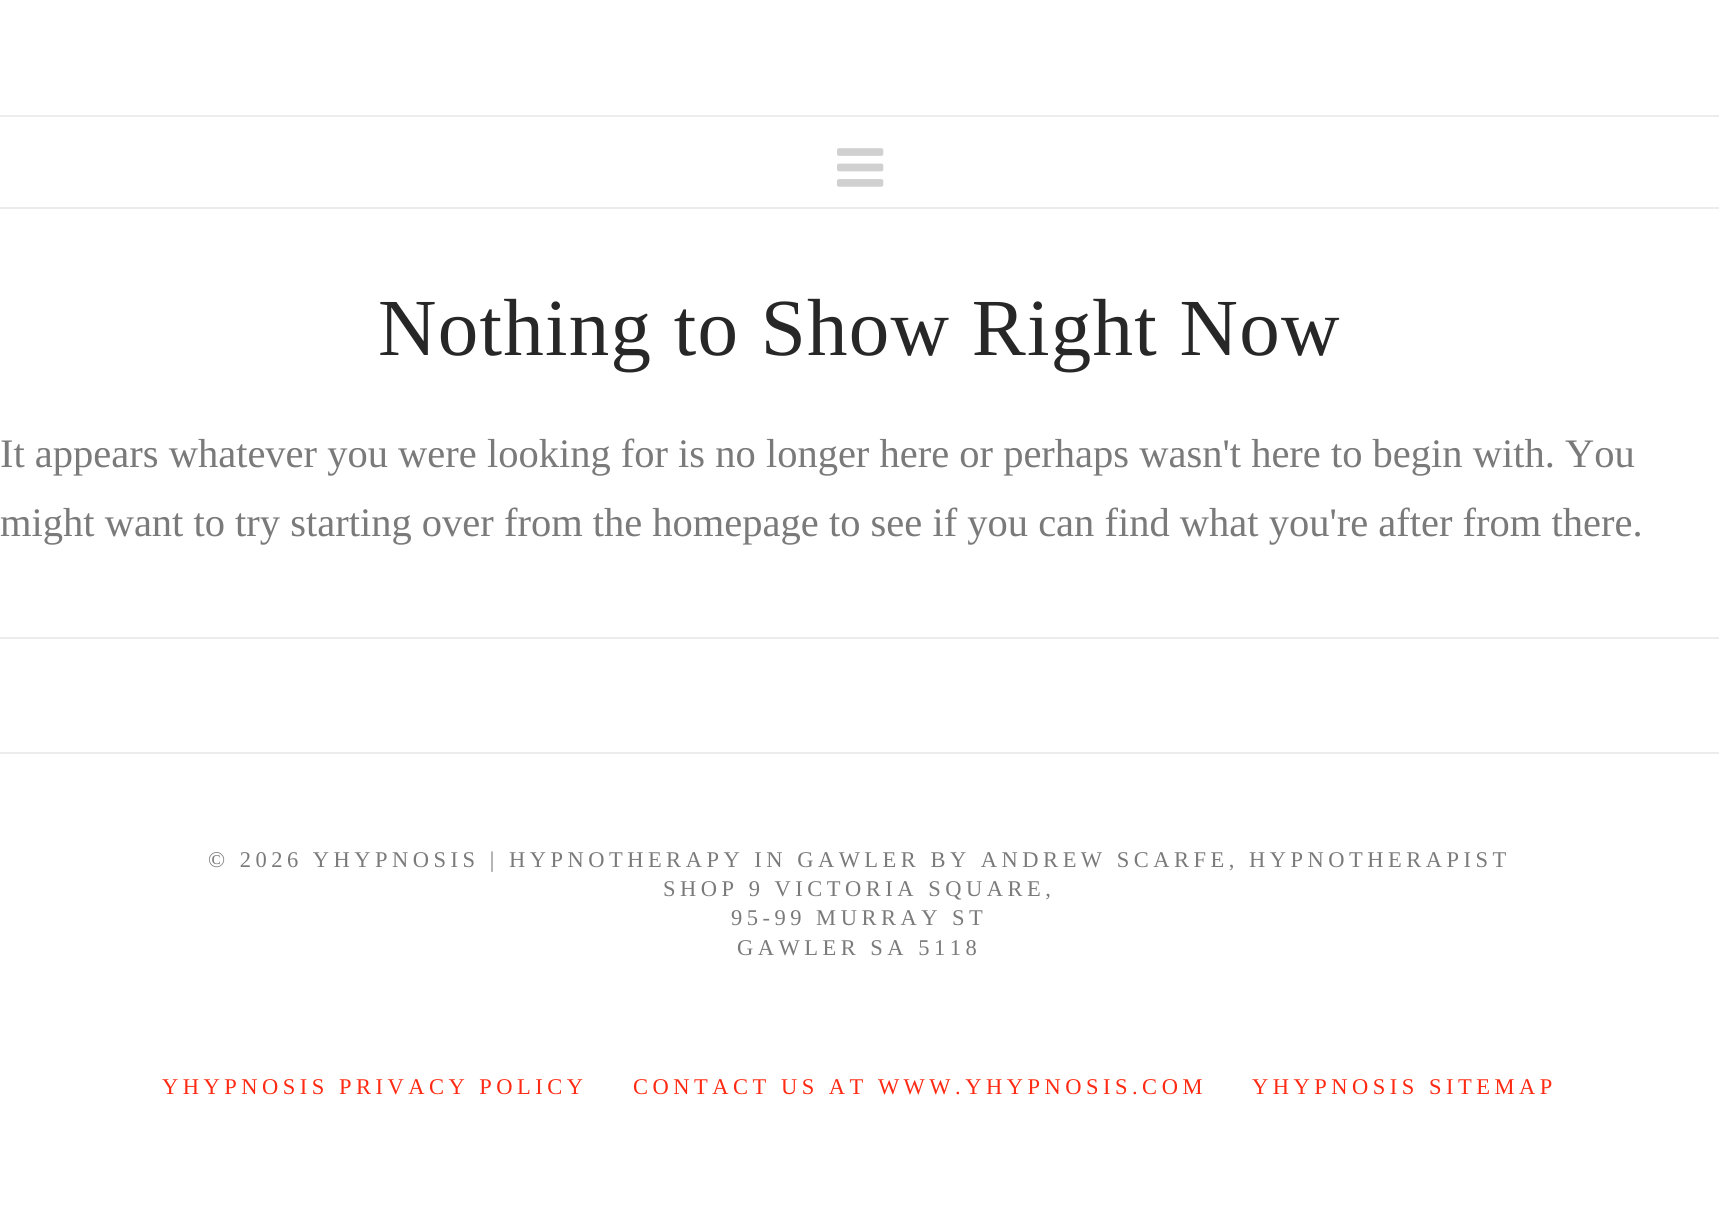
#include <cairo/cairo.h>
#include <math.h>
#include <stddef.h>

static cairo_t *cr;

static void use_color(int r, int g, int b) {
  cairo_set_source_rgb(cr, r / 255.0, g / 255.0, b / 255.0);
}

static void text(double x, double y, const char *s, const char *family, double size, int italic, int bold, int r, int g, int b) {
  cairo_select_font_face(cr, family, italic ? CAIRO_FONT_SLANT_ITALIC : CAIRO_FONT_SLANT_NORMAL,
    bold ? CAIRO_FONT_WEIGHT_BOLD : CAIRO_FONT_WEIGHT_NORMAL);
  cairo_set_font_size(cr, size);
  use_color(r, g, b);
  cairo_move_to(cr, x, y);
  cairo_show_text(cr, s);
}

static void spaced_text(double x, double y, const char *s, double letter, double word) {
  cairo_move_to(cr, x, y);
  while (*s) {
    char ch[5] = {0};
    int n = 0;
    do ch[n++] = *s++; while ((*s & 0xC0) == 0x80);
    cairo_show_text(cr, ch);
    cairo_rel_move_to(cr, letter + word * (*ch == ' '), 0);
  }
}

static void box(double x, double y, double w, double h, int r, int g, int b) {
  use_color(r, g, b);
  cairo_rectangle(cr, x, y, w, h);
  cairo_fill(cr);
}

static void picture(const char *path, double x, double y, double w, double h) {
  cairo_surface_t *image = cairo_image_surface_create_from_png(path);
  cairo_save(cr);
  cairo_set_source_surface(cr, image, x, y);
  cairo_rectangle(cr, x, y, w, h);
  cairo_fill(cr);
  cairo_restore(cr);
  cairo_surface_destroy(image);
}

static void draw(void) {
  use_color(255, 255, 255);
  cairo_paint(cr);
  box(0, 115, 1719, 2, 236, 236, 236);
  box(0, 207, 1719, 2, 236, 236, 236);
  picture("img_01.png", 837, 148, 47, 39);
  box(0, 637, 1719, 2, 236, 236, 236);
  box(0, 752, 1719, 2, 236, 236, 236);
  cairo_select_font_face(cr, "Liberation Serif", CAIRO_FONT_SLANT_NORMAL, CAIRO_FONT_WEIGHT_NORMAL);
  cairo_set_font_size(cr, 81);
  use_color(39, 39, 39);
  spaced_text(378, 355, "Nothing to Show Right Now", 1.25, 0);
  text(0, 467, "It appears whatever you were looking for is no longer here or perhaps wasn't here to begin with. You", "Liberation Serif", 40.5, 0, 0, 122, 122, 122);
  text(0, 536, "might want to try starting over from the homepage to see if you can find what you're after from there.", "Liberation Serif", 40.5, 0, 0, 122, 122, 122);
  cairo_set_font_size(cr, 22.5);
  spaced_text(208, 867, "© 2026 YHYPNOSIS | HYPNOTHERAPY IN GAWLER BY ANDREW SCARFE, HYPNOTHERAPIST", 4.5, 0);
  spaced_text(663, 896, "SHOP 9 VICTORIA SQUARE,", 4.5, 0);
  spaced_text(731, 925, "95-99 MURRAY ST", 4.5, 0);
  spaced_text(737, 955, "GAWLER SA 5118", 4.5, 0);
  use_color(255, 42, 19);
  spaced_text(162, 1094, "YHYPNOSIS PRIVACY POLICY", 4.5, 0);
  spaced_text(633, 1094, "CONTACT US AT WWW.YHYPNOSIS.COM", 4.5, 0);
  spaced_text(1252, 1094, "YHYPNOSIS SITEMAP", 4.5, 0);
}

int main(void) {
  cairo_surface_t *surface = cairo_image_surface_create(CAIRO_FORMAT_RGB24, 1719, 1205);
  cr = cairo_create(surface);
  cairo_font_options_t *options = cairo_font_options_create();
  cairo_font_options_set_hint_metrics(options, CAIRO_HINT_METRICS_OFF);
  cairo_font_options_set_hint_style(options, CAIRO_HINT_STYLE_NONE);
  cairo_set_font_options(cr, options);
  cairo_set_miter_limit(cr, 4);
  draw();
  cairo_surface_write_to_png(surface, "out.png");
  cairo_font_options_destroy(options);
  cairo_destroy(cr);
  cairo_surface_destroy(surface);
  return 0;
}
